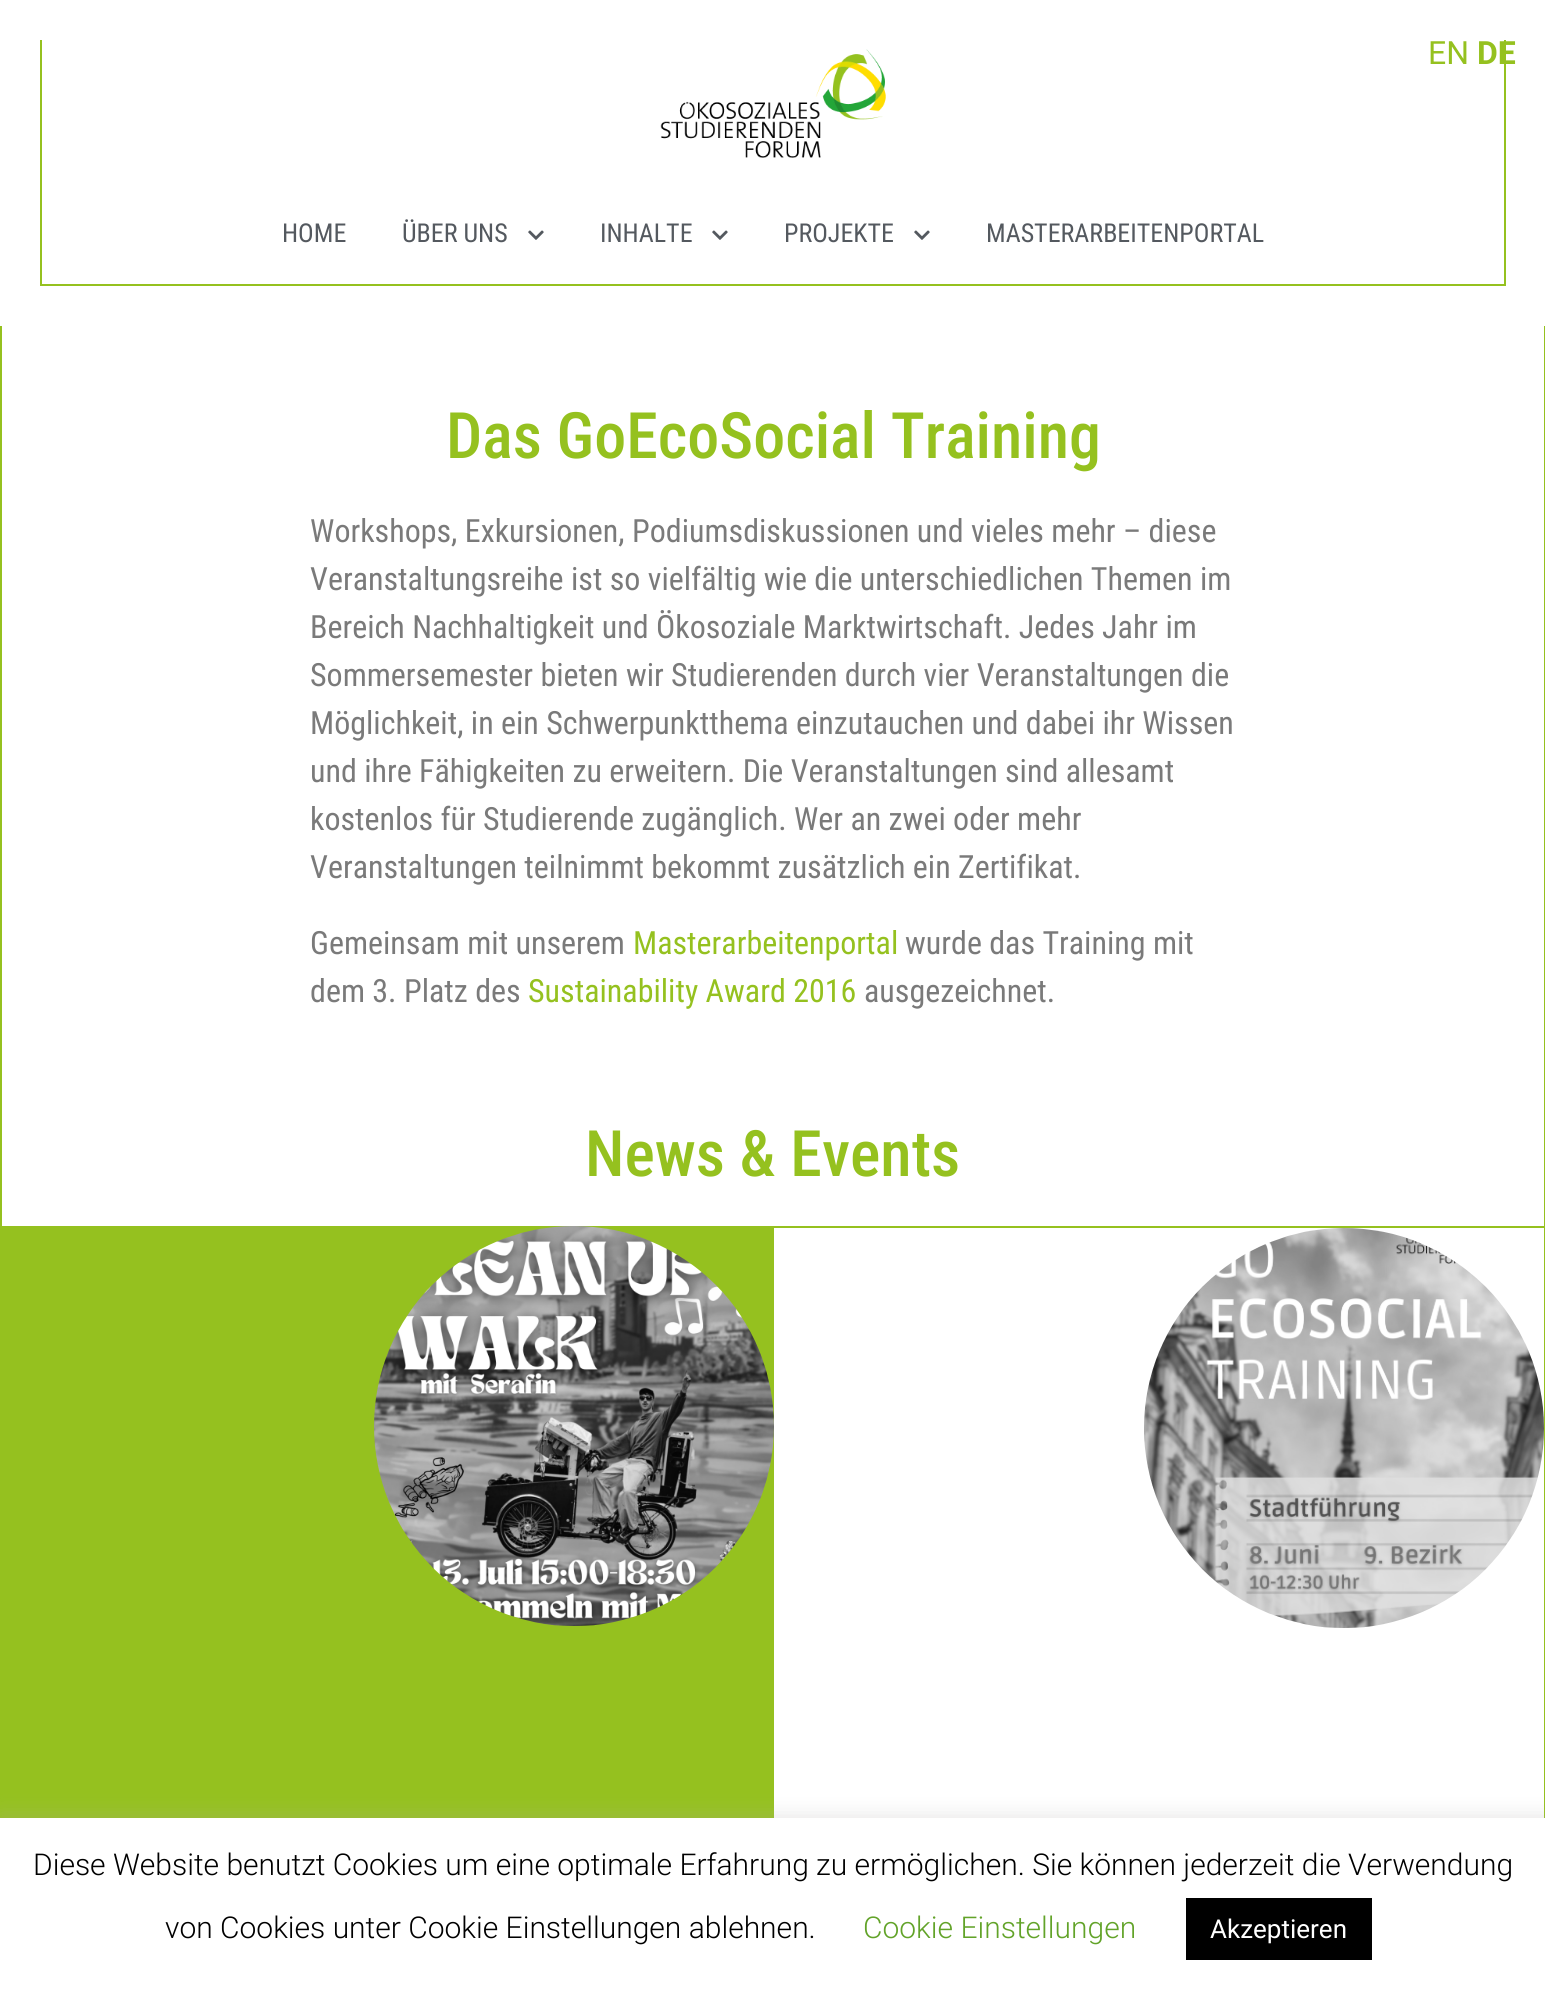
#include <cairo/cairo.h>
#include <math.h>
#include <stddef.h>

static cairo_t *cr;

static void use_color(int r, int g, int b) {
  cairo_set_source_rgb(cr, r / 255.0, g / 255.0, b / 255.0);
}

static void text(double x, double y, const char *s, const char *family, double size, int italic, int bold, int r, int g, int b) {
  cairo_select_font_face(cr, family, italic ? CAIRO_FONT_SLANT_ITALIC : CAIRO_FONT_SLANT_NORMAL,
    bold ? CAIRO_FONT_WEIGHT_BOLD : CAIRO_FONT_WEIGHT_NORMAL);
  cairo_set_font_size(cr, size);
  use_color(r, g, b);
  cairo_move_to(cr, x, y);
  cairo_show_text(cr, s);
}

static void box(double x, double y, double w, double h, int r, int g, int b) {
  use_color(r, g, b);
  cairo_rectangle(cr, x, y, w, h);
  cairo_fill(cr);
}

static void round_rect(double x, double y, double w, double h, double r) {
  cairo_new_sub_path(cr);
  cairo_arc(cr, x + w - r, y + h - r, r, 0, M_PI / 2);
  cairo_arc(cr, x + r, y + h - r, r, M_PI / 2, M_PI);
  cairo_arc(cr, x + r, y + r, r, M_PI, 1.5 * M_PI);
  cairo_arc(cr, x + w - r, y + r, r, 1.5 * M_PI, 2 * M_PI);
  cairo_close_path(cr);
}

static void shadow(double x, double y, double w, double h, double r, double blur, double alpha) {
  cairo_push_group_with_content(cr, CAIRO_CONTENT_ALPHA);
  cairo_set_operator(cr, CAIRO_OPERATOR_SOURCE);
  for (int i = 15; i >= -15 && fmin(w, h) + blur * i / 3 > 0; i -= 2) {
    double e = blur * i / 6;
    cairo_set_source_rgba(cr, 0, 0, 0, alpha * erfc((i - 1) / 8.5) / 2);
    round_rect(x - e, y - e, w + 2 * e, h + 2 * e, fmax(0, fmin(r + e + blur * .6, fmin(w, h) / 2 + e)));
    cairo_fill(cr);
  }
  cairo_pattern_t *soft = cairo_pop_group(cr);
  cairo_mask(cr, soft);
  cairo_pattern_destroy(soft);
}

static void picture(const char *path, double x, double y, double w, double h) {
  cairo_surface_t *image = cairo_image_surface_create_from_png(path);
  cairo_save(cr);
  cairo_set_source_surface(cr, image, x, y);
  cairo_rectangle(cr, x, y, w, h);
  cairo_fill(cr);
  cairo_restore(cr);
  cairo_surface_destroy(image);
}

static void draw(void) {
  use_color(255, 255, 255);
  cairo_paint(cr);
  box(1504, 40, 2, 246, 149, 193, 31);
  box(40, 284, 1466, 2, 149, 193, 31);
  box(40, 40, 2, 246, 149, 193, 31);
  picture("img_01.png", 660, 49, 226, 109);
  picture("img_02.png", 528, 230, 16, 10);
  picture("img_02.png", 712, 230, 16, 10);
  picture("img_02.png", 914, 230, 16, 10);
  box(1544, 326, 1, 1492, 149, 193, 31);
  box(0, 326, 2, 1492, 149, 193, 31);
  box(2, 1226, 772, 592, 149, 193, 31);
  picture("img_03.png", 374, 1226, 400, 400);
  box(774, 1226, 770, 2, 149, 193, 31);
  picture("img_04.png", 1144, 1228, 400, 400);
  use_color(172, 171, 171);
  shadow(0, 1816, 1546, 176, 0, 10, 0.3);
  box(0, 1818, 1545, 176, 255, 255, 255);
  box(1186, 1898, 186, 62, 0, 0, 0);
  text(1428, 64, "EN", "Roboto", 32, 0, 0, 149, 193, 31);
  text(1477, 64, "DE", "Roboto", 32, 0, 1, 149, 193, 31);
  text(282, 242, "HOME", "Roboto Condensed", 26, 0, 0, 84, 89, 95);
  text(402, 242, "ÜBER UNS", "Roboto Condensed", 26, 0, 0, 84, 89, 95);
  text(600, 242, "INHALTE", "Roboto Condensed", 26, 0, 0, 84, 89, 95);
  text(784, 242, "PROJEKTE", "Roboto Condensed", 26, 0, 0, 84, 89, 95);
  text(986, 242, "MASTERARBEITENPORTAL", "Roboto Condensed", 26, 0, 0, 84, 89, 95);
  text(446, 458, "Das GoEcoSocial Training", "Roboto Condensed Medium", 64, 0, 0, 149, 193, 31);
  text(310, 542, "Workshops, Exkursionen, Podiumsdiskussionen und vieles mehr – diese", "Roboto Condensed", 32, 0, 0, 122, 122, 122);
  text(310, 590, "Veranstaltungsreihe ist so vielfältig wie die unterschiedlichen Themen im", "Roboto Condensed", 32, 0, 0, 122, 122, 122);
  text(310, 638, "Bereich Nachhaltigkeit und Ökosoziale Marktwirtschaft. Jedes Jahr im", "Roboto Condensed", 32, 0, 0, 122, 122, 122);
  text(310, 686, "Sommersemester bieten wir Studierenden durch vier Veranstaltungen die", "Roboto Condensed", 32, 0, 0, 122, 122, 122);
  text(310, 734, "Möglichkeit, in ein Schwerpunktthema einzutauchen und dabei ihr Wissen", "Roboto Condensed", 32, 0, 0, 122, 122, 122);
  text(310, 782, "und ihre Fähigkeiten zu erweitern. Die Veranstaltungen sind allesamt", "Roboto Condensed", 32, 0, 0, 122, 122, 122);
  text(310, 830, "kostenlos für Studierende zugänglich. Wer an zwei oder mehr", "Roboto Condensed", 32, 0, 0, 122, 122, 122);
  text(310, 878, "Veranstaltungen teilnimmt bekommt zusätzlich ein Zertifikat.", "Roboto Condensed", 32, 0, 0, 122, 122, 122);
  text(310, 954, "Gemeinsam mit unserem", "Roboto Condensed", 32, 0, 0, 122, 122, 122);
  text(633, 954, "Masterarbeitenportal", "Roboto Condensed", 32, 0, 0, 149, 193, 31);
  text(905, 954, "wurde das Training mit", "Roboto Condensed", 32, 0, 0, 122, 122, 122);
  text(310, 1002, "dem 3. Platz des", "Roboto Condensed", 32, 0, 0, 122, 122, 122);
  text(528, 1002, "Sustainability Award 2016", "Roboto Condensed", 32, 0, 0, 149, 193, 31);
  text(864, 1002, "ausgezeichnet.", "Roboto Condensed", 32, 0, 0, 122, 122, 122);
  text(585, 1176, "News & Events", "Roboto Condensed Medium", 64, 0, 0, 149, 193, 31);
  text(33, 1875, "Diese Website benutzt Cookies um eine optimale Erfahrung zu ermöglichen. Sie können jederzeit die Verwendung", "Roboto Light", 30, 0, 0, 0, 0, 0);
  text(165, 1938, "von Cookies unter Cookie Einstellungen ablehnen.", "Roboto Light", 30, 0, 0, 0, 0, 0);
  text(863, 1938, "Cookie Einstellungen", "Roboto Light", 30, 0, 0, 98, 163, 41);
  text(1210, 1938, "Akzeptieren", "Roboto", 26, 0, 0, 255, 255, 255);
}

int main(void) {
  cairo_surface_t *surface = cairo_image_surface_create(CAIRO_FORMAT_RGB24, 1545, 1994);
  cr = cairo_create(surface);
  cairo_font_options_t *options = cairo_font_options_create();
  cairo_font_options_set_hint_metrics(options, CAIRO_HINT_METRICS_OFF);
  cairo_font_options_set_hint_style(options, CAIRO_HINT_STYLE_NONE);
  cairo_set_font_options(cr, options);
  cairo_set_miter_limit(cr, 4);
  draw();
  cairo_surface_write_to_png(surface, "out.png");
  cairo_font_options_destroy(options);
  cairo_destroy(cr);
  cairo_surface_destroy(surface);
  return 0;
}
